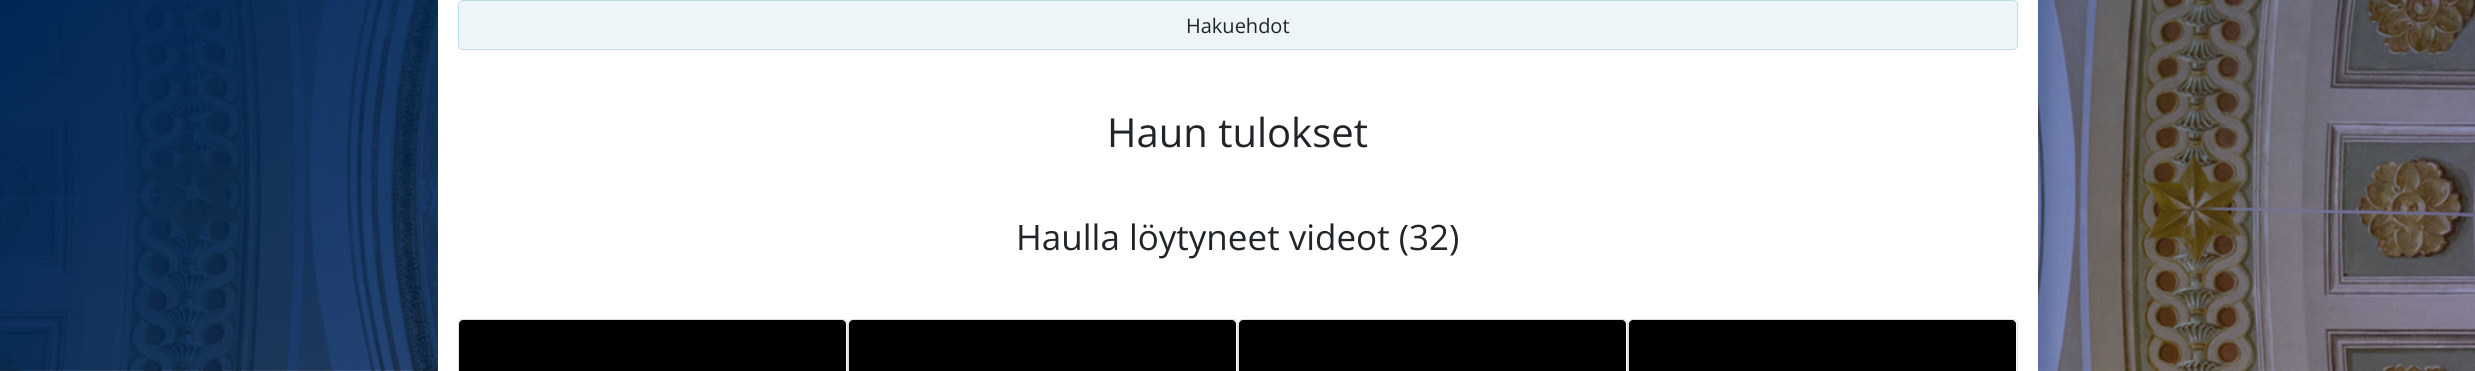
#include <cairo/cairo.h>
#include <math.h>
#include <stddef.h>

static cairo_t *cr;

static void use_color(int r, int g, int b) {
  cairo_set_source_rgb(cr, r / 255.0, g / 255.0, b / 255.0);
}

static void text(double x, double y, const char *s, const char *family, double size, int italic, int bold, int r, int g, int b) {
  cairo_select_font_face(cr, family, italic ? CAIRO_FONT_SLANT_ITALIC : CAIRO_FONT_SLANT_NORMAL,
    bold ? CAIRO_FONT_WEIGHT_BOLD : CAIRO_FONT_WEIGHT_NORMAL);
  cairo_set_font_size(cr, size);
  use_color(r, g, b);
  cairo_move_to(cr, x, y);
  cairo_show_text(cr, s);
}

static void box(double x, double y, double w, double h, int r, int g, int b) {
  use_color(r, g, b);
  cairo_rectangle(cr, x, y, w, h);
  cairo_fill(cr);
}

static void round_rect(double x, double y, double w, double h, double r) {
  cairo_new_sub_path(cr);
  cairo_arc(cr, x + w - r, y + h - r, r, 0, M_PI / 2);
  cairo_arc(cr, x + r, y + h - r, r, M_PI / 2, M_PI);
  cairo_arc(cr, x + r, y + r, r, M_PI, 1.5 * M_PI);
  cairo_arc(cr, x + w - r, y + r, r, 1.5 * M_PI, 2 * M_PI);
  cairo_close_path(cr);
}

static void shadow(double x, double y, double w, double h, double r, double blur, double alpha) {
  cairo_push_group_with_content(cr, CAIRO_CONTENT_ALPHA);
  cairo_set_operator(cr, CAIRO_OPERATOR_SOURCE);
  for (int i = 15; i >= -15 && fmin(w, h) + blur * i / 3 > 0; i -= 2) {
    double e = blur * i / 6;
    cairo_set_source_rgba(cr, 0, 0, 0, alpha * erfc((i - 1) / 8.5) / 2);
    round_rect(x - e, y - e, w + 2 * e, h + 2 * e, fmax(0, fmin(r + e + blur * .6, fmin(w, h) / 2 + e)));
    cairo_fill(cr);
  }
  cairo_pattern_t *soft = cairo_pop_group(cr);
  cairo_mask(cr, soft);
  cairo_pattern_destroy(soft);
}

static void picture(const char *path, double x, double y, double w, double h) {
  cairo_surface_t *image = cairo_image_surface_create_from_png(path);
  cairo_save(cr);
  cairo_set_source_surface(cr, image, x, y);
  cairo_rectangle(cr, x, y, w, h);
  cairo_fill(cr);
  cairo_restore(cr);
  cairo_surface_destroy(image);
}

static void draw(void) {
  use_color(255, 255, 255);
  cairo_paint(cr);
  picture("img_01.png", 0, 0, 2475, 371);
  use_color(0, 40, 85);
  shadow(425, -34, 1625, 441, 18, 6, 0.2);
  box(438, 0, 1600, 371, 255, 255, 255);
  use_color(236, 245, 247);
  round_rect(458.5, 0.5, 1559, 49, 4.5);
  cairo_fill_preserve(cr);
  use_color(192, 221, 230);
  cairo_set_line_width(cr, 1);
  cairo_stroke(cr);
  round_rect(458.5, 319.5, 389, 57, 4.5);
  use_color(223, 223, 223);
  cairo_stroke(cr);
  use_color(0, 0, 0);
  cairo_new_path(cr);
  cairo_move_to(cr, 463, 320);
  cairo_line_to(cr, 842, 320);
  cairo_curve_to(cr, 844, 320, 846, 322, 846, 324);
  cairo_line_to(cr, 846, 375);
  cairo_line_to(cr, 459, 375);
  cairo_line_to(cr, 459, 324);
  cairo_curve_to(cr, 459, 322, 461, 320, 463, 320);
  cairo_close_path(cr);
  cairo_fill(cr);
  round_rect(848.5, 319.5, 389, 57, 4.5);
  use_color(223, 223, 223);
  cairo_stroke(cr);
  use_color(0, 0, 0);
  cairo_new_path(cr);
  cairo_move_to(cr, 853, 320);
  cairo_line_to(cr, 1232, 320);
  cairo_curve_to(cr, 1234, 320, 1236, 322, 1236, 324);
  cairo_line_to(cr, 1236, 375);
  cairo_line_to(cr, 849, 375);
  cairo_line_to(cr, 849, 324);
  cairo_curve_to(cr, 849, 322, 851, 320, 853, 320);
  cairo_close_path(cr);
  cairo_fill(cr);
  round_rect(1238.5, 319.5, 389, 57, 4.5);
  use_color(223, 223, 223);
  cairo_stroke(cr);
  use_color(0, 0, 0);
  cairo_new_path(cr);
  cairo_move_to(cr, 1243, 320);
  cairo_line_to(cr, 1622, 320);
  cairo_curve_to(cr, 1624, 320, 1626, 322, 1626, 324);
  cairo_line_to(cr, 1626, 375);
  cairo_line_to(cr, 1239, 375);
  cairo_line_to(cr, 1239, 324);
  cairo_curve_to(cr, 1239, 322, 1241, 320, 1243, 320);
  cairo_close_path(cr);
  cairo_fill(cr);
  round_rect(1628.5, 319.5, 389, 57, 4.5);
  use_color(223, 223, 223);
  cairo_stroke(cr);
  use_color(0, 0, 0);
  cairo_new_path(cr);
  cairo_move_to(cr, 1633, 320);
  cairo_line_to(cr, 2012, 320);
  cairo_curve_to(cr, 2014, 320, 2016, 322, 2016, 324);
  cairo_line_to(cr, 2016, 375);
  cairo_line_to(cr, 1629, 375);
  cairo_line_to(cr, 1629, 324);
  cairo_curve_to(cr, 1629, 322, 1631, 320, 1633, 320);
  cairo_close_path(cr);
  cairo_fill(cr);
  text(1186, 33, "Hakuehdot", "Open Sans", 20, 0, 0, 33, 37, 41);
  text(1107, 147, "Haun tulokset", "Open Sans", 40, 0, 0, 33, 37, 41);
  text(1016, 250, "Haulla löytyneet videot (32)", "Open Sans", 35, 0, 0, 33, 37, 41);
}

int main(void) {
  cairo_surface_t *surface = cairo_image_surface_create(CAIRO_FORMAT_RGB24, 2475, 371);
  cr = cairo_create(surface);
  cairo_font_options_t *options = cairo_font_options_create();
  cairo_font_options_set_hint_metrics(options, CAIRO_HINT_METRICS_OFF);
  cairo_font_options_set_hint_style(options, CAIRO_HINT_STYLE_NONE);
  cairo_set_font_options(cr, options);
  cairo_set_miter_limit(cr, 4);
  draw();
  cairo_surface_write_to_png(surface, "out.png");
  cairo_font_options_destroy(options);
  cairo_destroy(cr);
  cairo_surface_destroy(surface);
  return 0;
}
